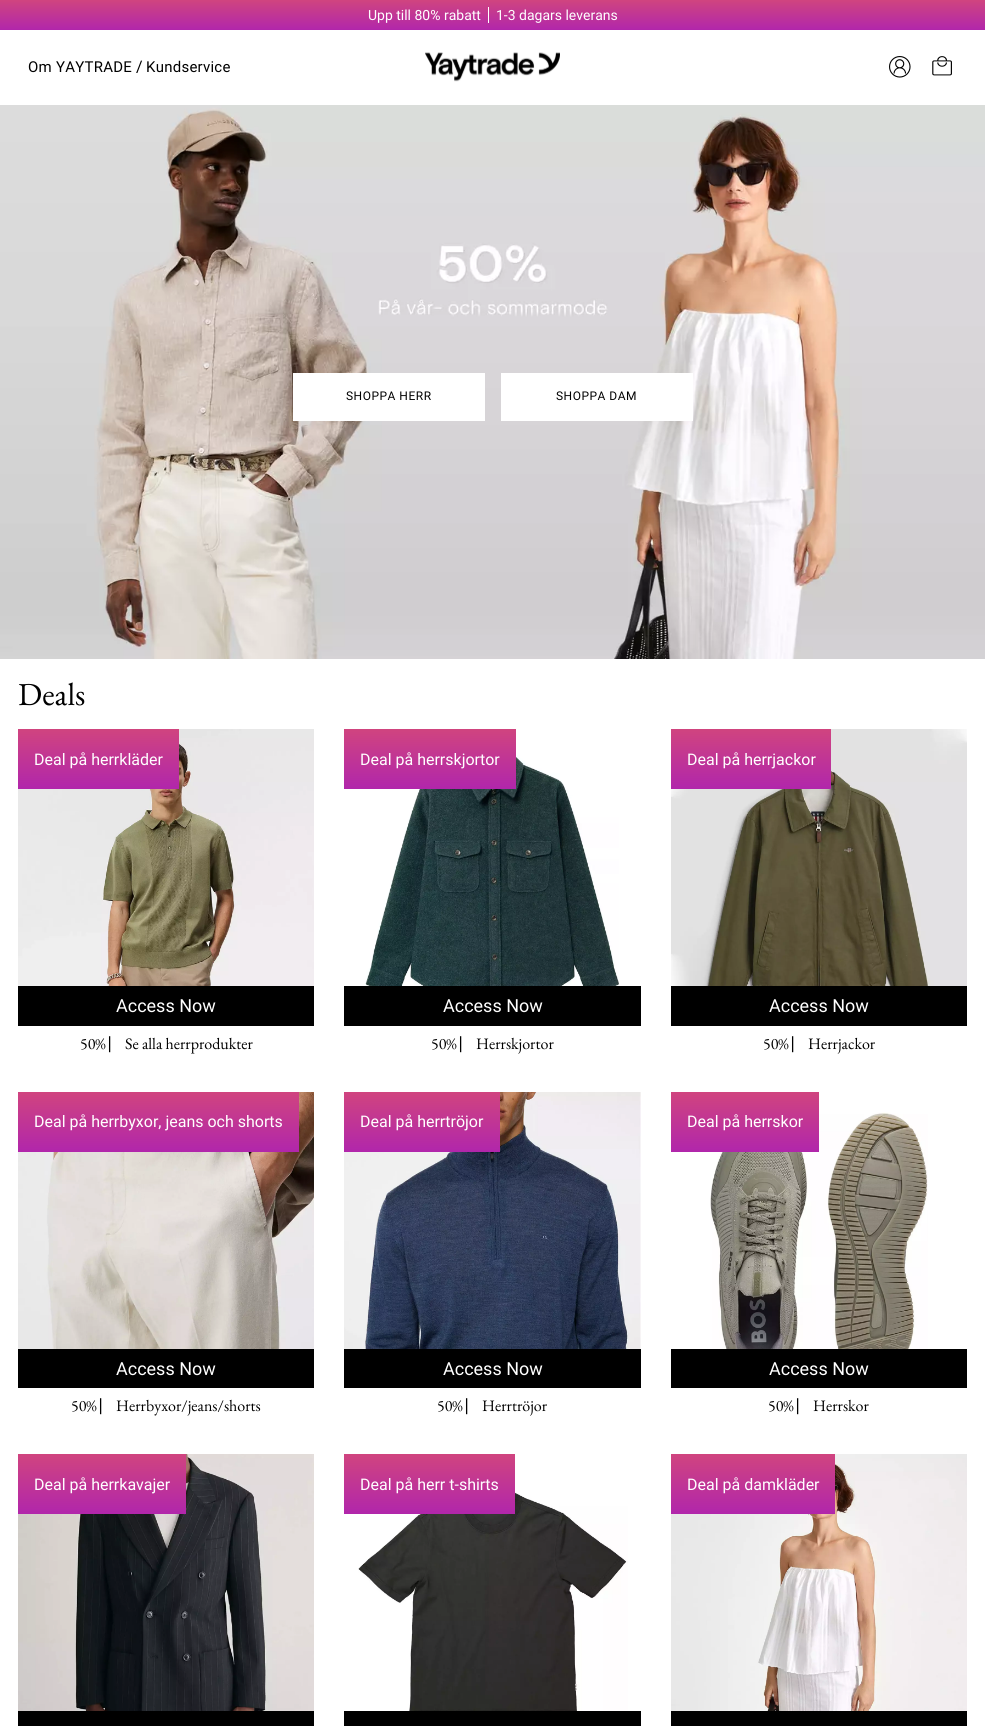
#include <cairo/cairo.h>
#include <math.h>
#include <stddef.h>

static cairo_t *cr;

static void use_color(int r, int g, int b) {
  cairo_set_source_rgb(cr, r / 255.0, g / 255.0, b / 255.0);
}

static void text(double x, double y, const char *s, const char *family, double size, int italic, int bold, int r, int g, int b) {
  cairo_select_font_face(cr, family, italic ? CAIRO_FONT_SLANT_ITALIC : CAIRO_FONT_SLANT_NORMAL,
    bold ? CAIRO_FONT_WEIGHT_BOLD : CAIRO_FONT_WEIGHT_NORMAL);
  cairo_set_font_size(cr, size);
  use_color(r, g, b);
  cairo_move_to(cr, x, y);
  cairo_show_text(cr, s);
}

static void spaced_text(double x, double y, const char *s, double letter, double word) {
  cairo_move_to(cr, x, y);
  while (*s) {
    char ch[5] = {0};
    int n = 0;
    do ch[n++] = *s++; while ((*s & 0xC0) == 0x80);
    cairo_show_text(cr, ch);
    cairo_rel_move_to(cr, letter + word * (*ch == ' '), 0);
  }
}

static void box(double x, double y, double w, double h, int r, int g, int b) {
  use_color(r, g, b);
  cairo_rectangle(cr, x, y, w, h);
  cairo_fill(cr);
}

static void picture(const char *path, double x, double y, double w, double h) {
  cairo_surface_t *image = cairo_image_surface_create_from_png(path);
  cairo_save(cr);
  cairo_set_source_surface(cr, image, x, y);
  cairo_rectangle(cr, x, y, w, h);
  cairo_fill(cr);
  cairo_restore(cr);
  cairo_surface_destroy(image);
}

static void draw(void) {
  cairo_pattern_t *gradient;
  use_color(255, 255, 255);
  cairo_paint(cr);
  gradient = cairo_pattern_create_linear(493, 0, 493, 30);
  cairo_pattern_add_color_stop_rgba(gradient, 0, 0.816, 0.267, 0.498, 1);
  cairo_pattern_add_color_stop_rgba(gradient, 1, 0.694, 0.149, 0.671, 1);
  cairo_set_source(cr, gradient);
  cairo_pattern_destroy(gradient);
  cairo_rectangle(cr, 0, 0, 985, 30);
  cairo_fill(cr);
  box(488, 7, 1, 16, 255, 255, 255);
  picture("img_01.png", 425, 52, 135, 30);
  picture("img_02.png", 889, 56, 22, 22);
  picture("img_03.png", 932, 56, 20, 20);
  picture("img_04.png", 0, 105, 985, 554);
  box(293, 373, 192, 48, 255, 255, 255);
  box(501, 373, 192, 48, 255, 255, 255);
  picture("img_05.png", 18, 729, 296, 257);
  gradient = cairo_pattern_create_linear(99, 729, 99, 789);
  cairo_pattern_add_color_stop_rgba(gradient, 0, 0.816, 0.267, 0.498, 1);
  cairo_pattern_add_color_stop_rgba(gradient, 1, 0.694, 0.149, 0.671, 1);
  cairo_set_source(cr, gradient);
  cairo_pattern_destroy(gradient);
  cairo_rectangle(cr, 18, 729, 161, 60);
  cairo_fill(cr);
  box(18, 986, 296, 40, 0, 0, 0);
  picture("img_06.png", 365, 753, 254, 233);
  gradient = cairo_pattern_create_linear(430, 729, 430, 789);
  cairo_pattern_add_color_stop_rgba(gradient, 0, 0.816, 0.267, 0.498, 1);
  cairo_pattern_add_color_stop_rgba(gradient, 1, 0.694, 0.149, 0.671, 1);
  cairo_set_source(cr, gradient);
  cairo_pattern_destroy(gradient);
  cairo_rectangle(cr, 344, 729, 172, 60);
  cairo_fill(cr);
  box(344, 986, 297, 40, 0, 0, 0);
  picture("img_07.png", 671, 729, 296, 257);
  gradient = cairo_pattern_create_linear(751, 729, 751, 789);
  cairo_pattern_add_color_stop_rgba(gradient, 0, 0.816, 0.267, 0.498, 1);
  cairo_pattern_add_color_stop_rgba(gradient, 1, 0.694, 0.149, 0.671, 1);
  cairo_set_source(cr, gradient);
  cairo_pattern_destroy(gradient);
  cairo_rectangle(cr, 671, 729, 160, 60);
  cairo_fill(cr);
  box(671, 986, 296, 40, 0, 0, 0);
  picture("img_08.png", 18, 1092, 296, 257);
  gradient = cairo_pattern_create_linear(159, 1092, 159, 1152);
  cairo_pattern_add_color_stop_rgba(gradient, 0, 0.816, 0.267, 0.498, 1);
  cairo_pattern_add_color_stop_rgba(gradient, 1, 0.694, 0.149, 0.671, 1);
  cairo_set_source(cr, gradient);
  cairo_pattern_destroy(gradient);
  cairo_rectangle(cr, 18, 1092, 281, 60);
  cairo_fill(cr);
  box(18, 1349, 296, 39, 0, 0, 0);
  picture("img_09.png", 344, 1092, 297, 257);
  gradient = cairo_pattern_create_linear(422, 1092, 422, 1152);
  cairo_pattern_add_color_stop_rgba(gradient, 0, 0.816, 0.267, 0.498, 1);
  cairo_pattern_add_color_stop_rgba(gradient, 1, 0.694, 0.149, 0.671, 1);
  cairo_set_source(cr, gradient);
  cairo_pattern_destroy(gradient);
  cairo_rectangle(cr, 344, 1092, 156, 60);
  cairo_fill(cr);
  box(344, 1349, 297, 39, 0, 0, 0);
  picture("img_10.png", 710, 1112, 218, 237);
  gradient = cairo_pattern_create_linear(745, 1092, 745, 1152);
  cairo_pattern_add_color_stop_rgba(gradient, 0, 0.816, 0.267, 0.498, 1);
  cairo_pattern_add_color_stop_rgba(gradient, 1, 0.694, 0.149, 0.671, 1);
  cairo_set_source(cr, gradient);
  cairo_pattern_destroy(gradient);
  cairo_rectangle(cr, 671, 1092, 148, 60);
  cairo_fill(cr);
  box(671, 1349, 296, 39, 0, 0, 0);
  picture("img_11.png", 18, 1454, 296, 257);
  gradient = cairo_pattern_create_linear(102, 1454, 102, 1514);
  cairo_pattern_add_color_stop_rgba(gradient, 0, 0.816, 0.267, 0.498, 1);
  cairo_pattern_add_color_stop_rgba(gradient, 1, 0.694, 0.149, 0.671, 1);
  cairo_set_source(cr, gradient);
  cairo_pattern_destroy(gradient);
  cairo_rectangle(cr, 18, 1454, 168, 60);
  cairo_fill(cr);
  box(18, 1711, 296, 15, 0, 0, 0);
  picture("img_12.png", 358, 1491, 270, 220);
  gradient = cairo_pattern_create_linear(430, 1454, 430, 1514);
  cairo_pattern_add_color_stop_rgba(gradient, 0, 0.816, 0.267, 0.498, 1);
  cairo_pattern_add_color_stop_rgba(gradient, 1, 0.694, 0.149, 0.671, 1);
  cairo_set_source(cr, gradient);
  cairo_pattern_destroy(gradient);
  cairo_rectangle(cr, 344, 1454, 171, 60);
  cairo_fill(cr);
  box(344, 1711, 297, 15, 0, 0, 0);
  picture("img_13.png", 671, 1454, 296, 257);
  gradient = cairo_pattern_create_linear(753, 1454, 753, 1514);
  cairo_pattern_add_color_stop_rgba(gradient, 0, 0.816, 0.267, 0.498, 1);
  cairo_pattern_add_color_stop_rgba(gradient, 1, 0.694, 0.149, 0.671, 1);
  cairo_set_source(cr, gradient);
  cairo_pattern_destroy(gradient);
  cairo_rectangle(cr, 671, 1454, 164, 60);
  cairo_fill(cr);
  box(671, 1711, 296, 15, 0, 0, 0);
  text(368, 20, "Upp till 80% rabatt", "Roboto", 14, 0, 0, 255, 255, 255);
  text(496, 20, "1-3 dagars leverans", "Roboto", 14, 0, 0, 255, 255, 255);
  cairo_set_font_size(cr, 15);
  use_color(0, 0, 0);
  spaced_text(28, 72, "Om YAYTRADE", 0.25, 0);
  text(136, 72, "/", "Roboto", 16, 0, 0, 0, 0, 0);
  cairo_set_font_size(cr, 15);
  spaced_text(146, 72, "Kundservice", 0.25, 0);
  cairo_set_font_size(cr, 12);
  spaced_text(346, 400, "SHOPPA HERR", 0.5, 0);
  spaced_text(556, 400, "SHOPPA DAM", 0.5, 0);
  text(18, 705, "Deals", "EB Garamond", 32, 0, 0, 0, 0, 0);
  text(34, 765, "Deal på herrkläder", "Roboto", 16, 0, 0, 255, 255, 255);
  text(116, 1012, "Access Now", "Roboto", 18, 0, 0, 255, 255, 255);
  text(80, 1049, "50%", "EB Garamond", 16, 0, 0, 0, 0, 0);
  text(109, 1049, "⎸", "FreeSans", 16, 0, 0, 0, 0, 0);
  text(125, 1049, "Se alla herrprodukter", "EB Garamond", 16, 0, 0, 0, 0, 0);
  text(360, 765, "Deal på herrskjortor", "Roboto", 16, 0, 0, 255, 255, 255);
  text(443, 1012, "Access Now", "Roboto", 18, 0, 0, 255, 255, 255);
  text(431, 1049, "50%", "EB Garamond", 16, 0, 0, 0, 0, 0);
  text(460, 1049, "⎸", "FreeSans", 16, 0, 0, 0, 0, 0);
  text(476, 1049, "Herrskjortor", "EB Garamond", 16, 0, 0, 0, 0, 0);
  text(687, 765, "Deal på herrjackor", "Roboto", 16, 0, 0, 255, 255, 255);
  text(769, 1012, "Access Now", "Roboto", 18, 0, 0, 255, 255, 255);
  text(763, 1049, "50%", "EB Garamond", 16, 0, 0, 0, 0, 0);
  text(792, 1049, "⎸", "FreeSans", 16, 0, 0, 0, 0, 0);
  text(808, 1049, "Herrjackor", "EB Garamond", 16, 0, 0, 0, 0, 0);
  text(34, 1127, "Deal på herrbyxor, jeans och shorts", "Roboto", 16, 0, 0, 255, 255, 255);
  text(116, 1375, "Access Now", "Roboto", 18, 0, 0, 255, 255, 255);
  text(71, 1411, "50%", "EB Garamond", 16, 0, 0, 0, 0, 0);
  text(100, 1411, "⎸", "FreeSans", 16, 0, 0, 0, 0, 0);
  text(116, 1411, "Herrbyxor/jeans/shorts", "EB Garamond", 16, 0, 0, 0, 0, 0);
  text(360, 1127, "Deal på herrtröjor", "Roboto", 16, 0, 0, 255, 255, 255);
  text(443, 1375, "Access Now", "Roboto", 18, 0, 0, 255, 255, 255);
  text(437, 1411, "50%", "EB Garamond", 16, 0, 0, 0, 0, 0);
  text(466, 1411, "⎸", "FreeSans", 16, 0, 0, 0, 0, 0);
  text(482, 1411, "Herrtröjor", "EB Garamond", 16, 0, 0, 0, 0, 0);
  text(687, 1127, "Deal på herrskor", "Roboto", 16, 0, 0, 255, 255, 255);
  text(769, 1375, "Access Now", "Roboto", 18, 0, 0, 255, 255, 255);
  text(768, 1411, "50%", "EB Garamond", 16, 0, 0, 0, 0, 0);
  text(797, 1411, "⎸", "FreeSans", 16, 0, 0, 0, 0, 0);
  text(813, 1411, "Herrskor", "EB Garamond", 16, 0, 0, 0, 0, 0);
  text(34, 1490, "Deal på herrkavajer", "Roboto", 16, 0, 0, 255, 255, 255);
  text(360, 1490, "Deal på herr t-shirts", "Roboto", 16, 0, 0, 255, 255, 255);
  text(687, 1490, "Deal på damkläder", "Roboto", 16, 0, 0, 255, 255, 255);
}

int main(void) {
  cairo_surface_t *surface = cairo_image_surface_create(CAIRO_FORMAT_RGB24, 985, 1726);
  cr = cairo_create(surface);
  cairo_font_options_t *options = cairo_font_options_create();
  cairo_font_options_set_hint_metrics(options, CAIRO_HINT_METRICS_OFF);
  cairo_font_options_set_hint_style(options, CAIRO_HINT_STYLE_NONE);
  cairo_set_font_options(cr, options);
  cairo_set_miter_limit(cr, 4);
  draw();
  cairo_surface_write_to_png(surface, "out.png");
  cairo_font_options_destroy(options);
  cairo_destroy(cr);
  cairo_surface_destroy(surface);
  return 0;
}
